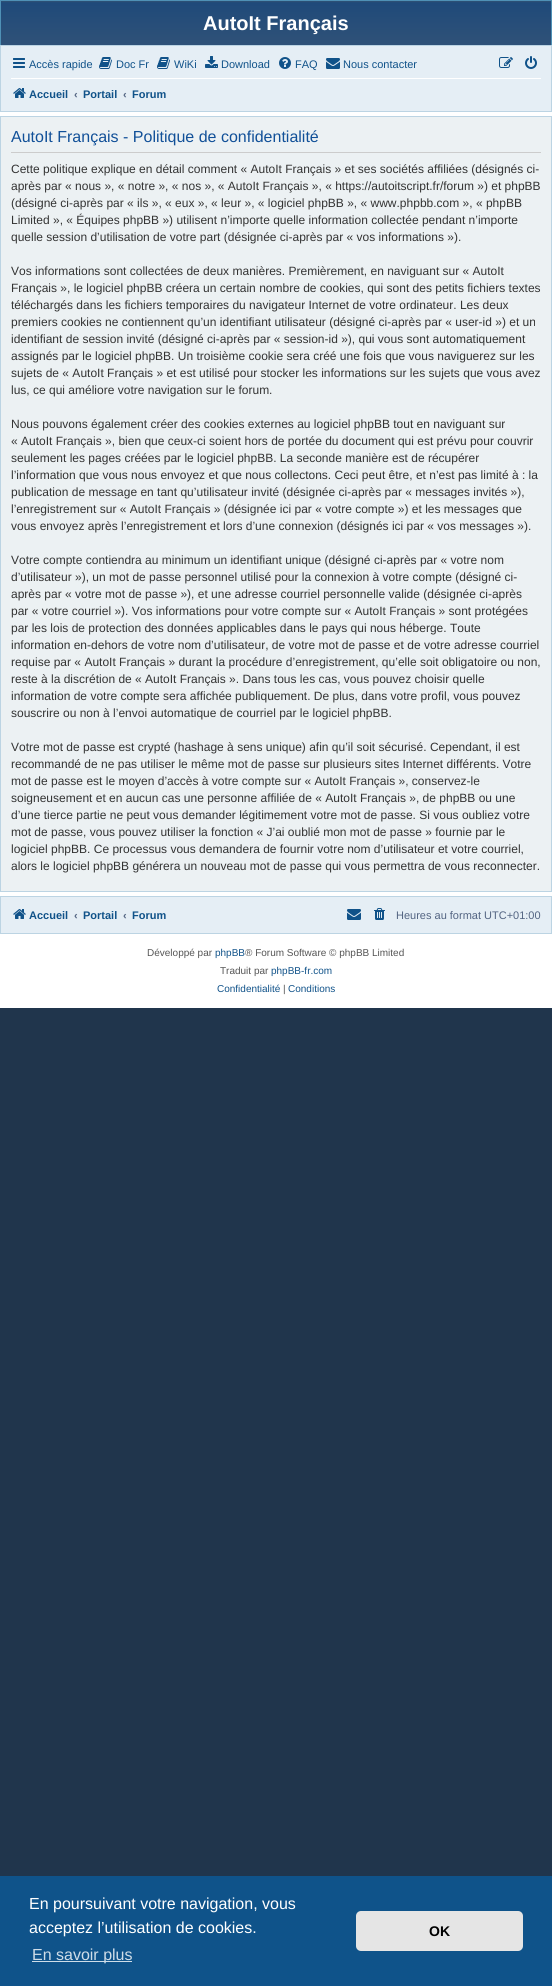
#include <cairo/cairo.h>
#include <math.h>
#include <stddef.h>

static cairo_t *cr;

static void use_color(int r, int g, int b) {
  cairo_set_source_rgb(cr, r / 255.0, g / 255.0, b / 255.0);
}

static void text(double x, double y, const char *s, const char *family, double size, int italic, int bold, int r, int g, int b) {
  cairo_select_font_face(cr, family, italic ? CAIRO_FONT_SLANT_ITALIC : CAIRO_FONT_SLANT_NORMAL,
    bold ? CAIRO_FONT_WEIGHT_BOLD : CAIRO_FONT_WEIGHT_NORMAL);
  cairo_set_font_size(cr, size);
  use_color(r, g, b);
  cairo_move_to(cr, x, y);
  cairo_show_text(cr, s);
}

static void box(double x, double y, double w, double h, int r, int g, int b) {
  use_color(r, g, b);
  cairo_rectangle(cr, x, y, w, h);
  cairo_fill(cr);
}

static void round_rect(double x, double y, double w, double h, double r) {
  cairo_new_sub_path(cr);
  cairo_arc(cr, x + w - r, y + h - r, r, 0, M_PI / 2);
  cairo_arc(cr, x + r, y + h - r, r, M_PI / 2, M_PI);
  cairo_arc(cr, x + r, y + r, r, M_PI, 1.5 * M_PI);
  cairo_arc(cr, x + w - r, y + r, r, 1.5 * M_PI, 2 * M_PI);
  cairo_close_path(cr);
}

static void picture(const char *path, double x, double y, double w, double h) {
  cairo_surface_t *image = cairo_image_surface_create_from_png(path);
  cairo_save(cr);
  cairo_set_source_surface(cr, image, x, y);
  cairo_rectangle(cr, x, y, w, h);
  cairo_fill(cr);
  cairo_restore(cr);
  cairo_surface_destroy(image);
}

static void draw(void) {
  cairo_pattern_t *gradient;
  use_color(32, 53, 76);
  cairo_paint(cr);
  box(0, 112, 552, 896, 255, 255, 255);
  gradient = cairo_pattern_create_linear(276, 1, 276, 93);
  cairo_pattern_add_color_stop_rgba(gradient, 0, 0.192, 0.322, 0.459, 1);
  cairo_pattern_add_color_stop_rgba(gradient, 0.02, 0.122, 0.29, 0.478, 1);
  cairo_pattern_add_color_stop_rgba(gradient, 1, 0.259, 0.353, 0.459, 1);
  cairo_pattern_add_color_stop_rgba(gradient, 1, 0.11, 0.18, 0.263, 1);
  cairo_set_source(cr, gradient);
  cairo_pattern_destroy(gradient);
  cairo_rectangle(cr, 1, 1, 550, 44);
  cairo_fill(cr);
  cairo_rectangle(cr, 0.5, 0.5, 551, 45);
  use_color(79, 145, 182);
  cairo_set_line_width(cr, 1);
  cairo_stroke(cr);
  use_color(229, 238, 245);
  cairo_rectangle(cr, 0.5, 45.5, 551, 66);
  cairo_fill_preserve(cr);
  use_color(188, 212, 227);
  cairo_stroke(cr);
  picture("img_01.png", 13, 58, 12, 10);
  picture("img_02.png", 99, 57, 13, 12);
  picture("img_02.png", 157, 57, 13, 12);
  picture("img_03.png", 205, 56, 13, 12);
  picture("img_04.png", 279, 57, 12, 12);
  picture("img_05.png", 326, 58, 14, 11);
  picture("img_06.png", 499, 57, 14, 11);
  picture("img_07.png", 525, 56, 12, 13);
  box(11, 78, 530, 1, 255, 255, 255);
  picture("img_08.png", 13, 88, 13, 10);
  use_color(236, 241, 243);
  cairo_rectangle(cr, 0.5, 116.5, 551, 775);
  cairo_fill_preserve(cr);
  use_color(188, 212, 227);
  cairo_stroke(cr);
  box(11, 152, 530, 1, 204, 204, 204);
  use_color(229, 238, 245);
  cairo_rectangle(cr, 0.5, 896.5, 551, 37);
  cairo_fill_preserve(cr);
  use_color(188, 212, 227);
  cairo_stroke(cr);
  picture("img_08.png", 13, 909, 13, 10);
  picture("img_05.png", 347, 909, 14, 11);
  picture("img_09.png", 374, 908, 11, 12);
  box(0, 1876, 552, 110, 15, 83, 138);
  box(32, 1961, 100, 1, 207, 221, 232);
  use_color(229, 229, 229);
  round_rect(356, 1911, 167, 40, 5);
  cairo_fill(cr);
  text(203, 30, "AutoIt Français", "Liberation Sans", 20, 0, 1, 255, 255, 255);
  text(29, 68, "Accès rapide", "Liberation Sans", 11, 0, 0, 16, 82, 137);
  text(116, 68, "Doc Fr", "Liberation Sans", 11, 0, 0, 16, 82, 137);
  text(174, 68, "WiKi", "Liberation Sans", 11, 0, 0, 16, 82, 137);
  text(221, 68, "Download", "Liberation Sans", 11, 0, 0, 16, 82, 137);
  text(295, 68, "FAQ", "Liberation Sans", 11, 0, 0, 16, 82, 137);
  text(343, 68, "Nous contacter", "Liberation Sans", 11, 0, 0, 16, 82, 137);
  text(29, 98, "Accueil", "Liberation Sans", 11, 0, 1, 16, 82, 137);
  text(74, 98, "‹", "Liberation Sans", 11, 0, 1, 83, 100, 130);
  text(83, 98, "Portail", "Liberation Sans", 11, 0, 1, 16, 82, 137);
  text(123, 98, "‹", "Liberation Sans", 11, 0, 1, 83, 100, 130);
  text(132, 98, "Forum", "Liberation Sans", 11, 0, 1, 16, 82, 137);
  text(11, 142, "AutoIt Français - Politique de confidentialité", "Liberation Sans", 16, 0, 0, 17, 80, 152);
  text(11, 173, "Cette politique explique en détail comment « AutoIt Français » et ses sociétés affiliées (désignés ci-", "Liberation Sans", 12, 0, 0, 51, 51, 51);
  text(11, 190, "après par « nous », « notre », « nos », « AutoIt Français », « https://autoitscript.fr/forum ») et phpBB", "Liberation Sans", 12, 0, 0, 51, 51, 51);
  text(11, 207, "(désigné ci-après par « ils », « eux », « leur », « logiciel phpBB », « www.phpbb.com », « phpBB", "Liberation Sans", 12, 0, 0, 51, 51, 51);
  text(11, 224, "Limited », « Équipes phpBB ») utilisent n’importe quelle information collectée pendant n’importe", "Liberation Sans", 12, 0, 0, 51, 51, 51);
  text(11, 241, "quelle session d’utilisation de votre part (désignée ci-après par « vos informations »).", "Liberation Sans", 12, 0, 0, 51, 51, 51);
  text(11, 275, "Vos informations sont collectées de deux manières. Premièrement, en naviguant sur « AutoIt", "Liberation Sans", 12, 0, 0, 51, 51, 51);
  text(11, 292, "Français », le logiciel phpBB créera un certain nombre de cookies, qui sont des petits fichiers textes", "Liberation Sans", 12, 0, 0, 51, 51, 51);
  text(11, 309, "téléchargés dans les fichiers temporaires du navigateur Internet de votre ordinateur. Les deux", "Liberation Sans", 12, 0, 0, 51, 51, 51);
  text(11, 326, "premiers cookies ne contiennent qu’un identifiant utilisateur (désigné ci-après par « user-id ») et un", "Liberation Sans", 12, 0, 0, 51, 51, 51);
  text(11, 343, "identifiant de session invité (désigné ci-après par « session-id »), qui vous sont automatiquement", "Liberation Sans", 12, 0, 0, 51, 51, 51);
  text(11, 360, "assignés par le logiciel phpBB. Un troisième cookie sera créé une fois que vous naviguerez sur les", "Liberation Sans", 12, 0, 0, 51, 51, 51);
  text(11, 377, "sujets de « AutoIt Français » et est utilisé pour stocker les informations sur les sujets que vous avez", "Liberation Sans", 12, 0, 0, 51, 51, 51);
  text(11, 394, "lus, ce qui améliore votre navigation sur le forum.", "Liberation Sans", 12, 0, 0, 51, 51, 51);
  text(11, 428, "Nous pouvons également créer des cookies externes au logiciel phpBB tout en naviguant sur", "Liberation Sans", 12, 0, 0, 51, 51, 51);
  text(11, 445, "« AutoIt Français », bien que ceux-ci soient hors de portée du document qui est prévu pour couvrir", "Liberation Sans", 12, 0, 0, 51, 51, 51);
  text(11, 462, "seulement les pages créées par le logiciel phpBB. La seconde manière est de récupérer", "Liberation Sans", 12, 0, 0, 51, 51, 51);
  text(11, 479, "l’information que vous nous envoyez et que nous collectons. Ceci peut être, et n’est pas limité à : la", "Liberation Sans", 12, 0, 0, 51, 51, 51);
  text(11, 496, "publication de message en tant qu’utilisateur invité (désignée ci-après par « messages invités »),", "Liberation Sans", 12, 0, 0, 51, 51, 51);
  text(11, 513, "l’enregistrement sur « AutoIt Français » (désignée ici par « votre compte ») et les messages que", "Liberation Sans", 12, 0, 0, 51, 51, 51);
  text(11, 530, "vous envoyez après l’enregistrement et lors d’une connexion (désignés ici par « vos messages »).", "Liberation Sans", 12, 0, 0, 51, 51, 51);
  text(11, 564, "Votre compte contiendra au minimum un identifiant unique (désigné ci-après par « votre nom", "Liberation Sans", 12, 0, 0, 51, 51, 51);
  text(11, 581, "d’utilisateur »), un mot de passe personnel utilisé pour la connexion à votre compte (désigné ci-", "Liberation Sans", 12, 0, 0, 51, 51, 51);
  text(11, 598, "après par « votre mot de passe »), et une adresse courriel personnelle valide (désignée ci-après", "Liberation Sans", 12, 0, 0, 51, 51, 51);
  text(11, 615, "par « votre courriel »). Vos informations pour votre compte sur « AutoIt Français » sont protégées", "Liberation Sans", 12, 0, 0, 51, 51, 51);
  text(11, 632, "par les lois de protection des données applicables dans le pays qui nous héberge. Toute", "Liberation Sans", 12, 0, 0, 51, 51, 51);
  text(11, 649, "information en-dehors de votre nom d’utilisateur, de votre mot de passe et de votre adresse courriel", "Liberation Sans", 12, 0, 0, 51, 51, 51);
  text(11, 666, "requise par « AutoIt Français » durant la procédure d’enregistrement, qu’elle soit obligatoire ou non,", "Liberation Sans", 12, 0, 0, 51, 51, 51);
  text(11, 683, "reste à la discrétion de « AutoIt Français ». Dans tous les cas, vous pouvez choisir quelle", "Liberation Sans", 12, 0, 0, 51, 51, 51);
  text(11, 700, "information de votre compte sera affichée publiquement. De plus, dans votre profil, vous pouvez", "Liberation Sans", 12, 0, 0, 51, 51, 51);
  text(11, 717, "souscrire ou non à l’envoi automatique de courriel par le logiciel phpBB.", "Liberation Sans", 12, 0, 0, 51, 51, 51);
  text(11, 751, "Votre mot de passe est crypté (hashage à sens unique) afin qu’il soit sécurisé. Cependant, il est", "Liberation Sans", 12, 0, 0, 51, 51, 51);
  text(11, 768, "recommandé de ne pas utiliser le même mot de passe sur plusieurs sites Internet différents. Votre", "Liberation Sans", 12, 0, 0, 51, 51, 51);
  text(11, 785, "mot de passe est le moyen d’accès à votre compte sur « AutoIt Français », conservez-le", "Liberation Sans", 12, 0, 0, 51, 51, 51);
  text(11, 802, "soigneusement et en aucun cas une personne affiliée de « AutoIt Français », de phpBB ou une", "Liberation Sans", 12, 0, 0, 51, 51, 51);
  text(11, 819, "d’une tierce partie ne peut vous demander légitimement votre mot de passe. Si vous oubliez votre", "Liberation Sans", 12, 0, 0, 51, 51, 51);
  text(11, 836, "mot de passe, vous pouvez utiliser la fonction « J’ai oublié mon mot de passe » fournie par le", "Liberation Sans", 12, 0, 0, 51, 51, 51);
  text(11, 853, "logiciel phpBB. Ce processus vous demandera de fournir votre nom d’utilisateur et votre courriel,", "Liberation Sans", 12, 0, 0, 51, 51, 51);
  text(11, 870, "alors le logiciel phpBB générera un nouveau mot de passe qui vous permettra de vous reconnecter.", "Liberation Sans", 12, 0, 0, 51, 51, 51);
  text(29, 919, "Accueil", "Liberation Sans", 11, 0, 1, 16, 82, 137);
  text(74, 919, "‹", "Liberation Sans", 11, 0, 1, 83, 100, 130);
  text(83, 919, "Portail", "Liberation Sans", 11, 0, 1, 16, 82, 137);
  text(123, 919, "‹", "Liberation Sans", 11, 0, 1, 83, 100, 130);
  text(132, 919, "Forum", "Liberation Sans", 11, 0, 1, 16, 82, 137);
  text(396, 919, "Heures au format UTC+01:00", "Liberation Sans", 11, 0, 0, 83, 100, 130);
  text(147, 956, "Développé par", "Liberation Sans", 10, 0, 0, 85, 85, 85);
  text(215, 956, "phpBB", "Liberation Sans", 10, 0, 0, 16, 82, 137);
  text(245, 956, "® Forum Software © phpBB Limited", "Liberation Sans", 10, 0, 0, 85, 85, 85);
  text(220, 974, "Traduit par", "Liberation Sans", 10, 0, 0, 85, 85, 85);
  text(271, 974, "phpBB-fr.com", "Liberation Sans", 10, 0, 0, 16, 82, 137);
  text(217, 992, "Confidentialité", "Liberation Sans", 10, 0, 0, 16, 82, 137);
  text(283, 992, "|", "Liberation Sans", 10, 0, 0, 85, 85, 85);
  text(288, 992, "Conditions", "Liberation Sans", 10, 0, 0, 16, 82, 137);
  text(29, 1909, "En poursuivant votre navigation, vous", "Liberation Sans", 16, 0, 0, 255, 255, 255);
  text(29, 1933, "acceptez l’utilisation de cookies.", "Liberation Sans", 16, 0, 0, 255, 255, 255);
  text(32, 1960, "En savoir plus", "Liberation Sans", 16, 0, 0, 207, 221, 232);
  text(429, 1936, "OK", "Liberation Sans", 14, 0, 1, 0, 0, 0);
}

int main(void) {
  cairo_surface_t *surface = cairo_image_surface_create(CAIRO_FORMAT_RGB24, 552, 1986);
  cr = cairo_create(surface);
  cairo_font_options_t *options = cairo_font_options_create();
  cairo_font_options_set_hint_metrics(options, CAIRO_HINT_METRICS_OFF);
  cairo_font_options_set_hint_style(options, CAIRO_HINT_STYLE_NONE);
  cairo_set_font_options(cr, options);
  cairo_set_miter_limit(cr, 4);
  draw();
  cairo_surface_write_to_png(surface, "out.png");
  cairo_font_options_destroy(options);
  cairo_destroy(cr);
  cairo_surface_destroy(surface);
  return 0;
}
